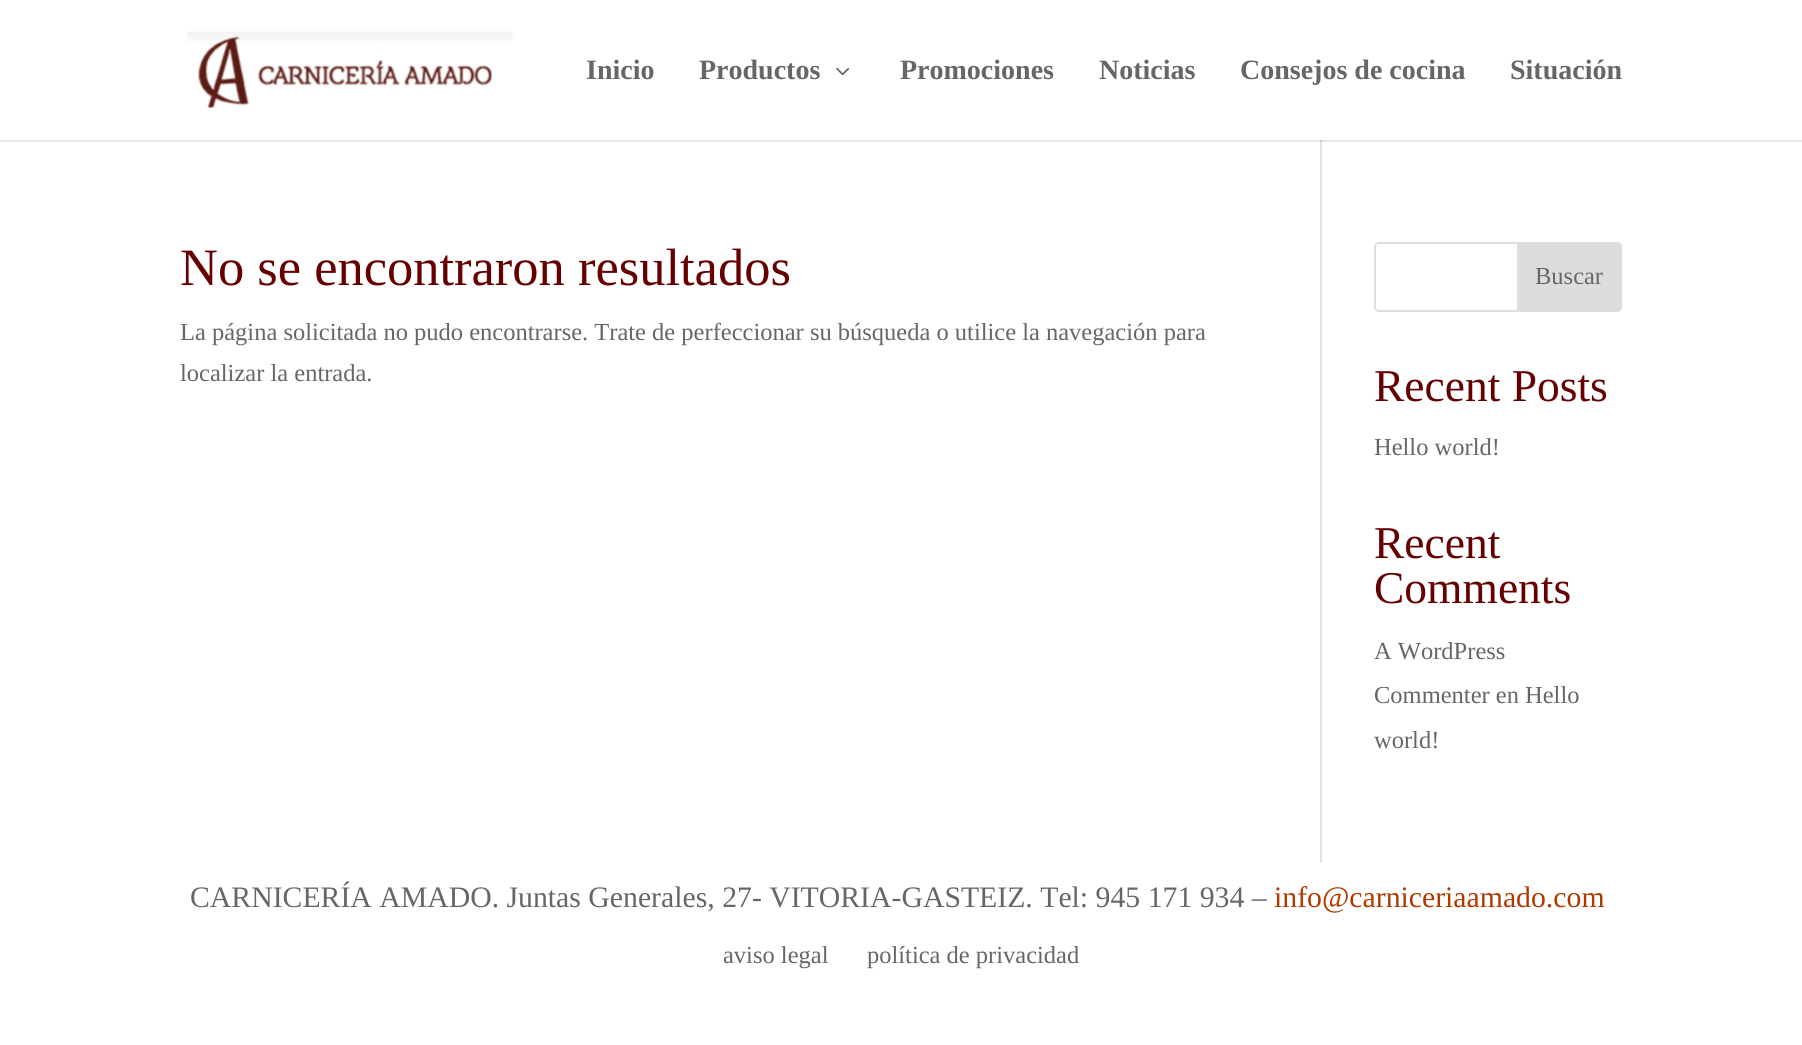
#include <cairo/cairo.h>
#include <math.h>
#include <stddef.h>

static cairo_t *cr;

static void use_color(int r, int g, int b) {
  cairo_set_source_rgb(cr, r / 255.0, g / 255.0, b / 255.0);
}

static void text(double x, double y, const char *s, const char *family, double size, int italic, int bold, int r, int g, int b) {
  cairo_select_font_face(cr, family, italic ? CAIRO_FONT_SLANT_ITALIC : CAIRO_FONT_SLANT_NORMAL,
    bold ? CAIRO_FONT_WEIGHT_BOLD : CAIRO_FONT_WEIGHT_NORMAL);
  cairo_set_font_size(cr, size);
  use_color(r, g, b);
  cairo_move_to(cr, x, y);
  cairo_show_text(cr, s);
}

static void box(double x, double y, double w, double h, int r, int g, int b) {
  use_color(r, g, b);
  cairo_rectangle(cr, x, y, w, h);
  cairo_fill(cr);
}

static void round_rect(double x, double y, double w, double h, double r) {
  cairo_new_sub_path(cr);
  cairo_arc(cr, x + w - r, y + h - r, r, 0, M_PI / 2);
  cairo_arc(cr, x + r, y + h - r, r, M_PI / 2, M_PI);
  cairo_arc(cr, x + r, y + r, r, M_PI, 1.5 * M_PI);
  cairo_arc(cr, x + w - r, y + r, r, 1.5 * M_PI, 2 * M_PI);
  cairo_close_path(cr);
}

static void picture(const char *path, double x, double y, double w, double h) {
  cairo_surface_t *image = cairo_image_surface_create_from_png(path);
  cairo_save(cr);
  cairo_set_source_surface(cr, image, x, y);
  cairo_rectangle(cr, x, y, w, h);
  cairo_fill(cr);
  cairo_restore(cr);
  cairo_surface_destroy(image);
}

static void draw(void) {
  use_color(255, 255, 255);
  cairo_paint(cr);
  box(1320, 140, 2, 723, 226, 226, 226);
  cairo_set_source_rgba(cr, 0, 0, 0, 0.1);
  cairo_new_path(cr);
  cairo_move_to(cr, 0, 140);
  cairo_line_to(cr, 0, 142);
  cairo_line_to(cr, 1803, 142);
  cairo_line_to(cr, 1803, 2);
  cairo_line_to(cr, 1802, 2);
  cairo_line_to(cr, 1802, 140);
  cairo_close_path(cr);
  cairo_fill(cr);
  picture("img_01.png", 187, 31, 326, 77);
  picture("img_02.png", 836, 67, 14, 9);
  round_rect(1375, 243, 246, 68, 4);
  use_color(221, 221, 221);
  cairo_stroke(cr);
  cairo_new_path(cr);
  cairo_move_to(cr, 1518, 243);
  cairo_line_to(cr, 1617, 243);
  cairo_curve_to(cr, 1619, 243, 1621, 245, 1621, 247);
  cairo_line_to(cr, 1621, 307);
  cairo_curve_to(cr, 1621, 309, 1619, 311, 1617, 311);
  cairo_line_to(cr, 1518, 311);
  cairo_close_path(cr);
  cairo_fill_preserve(cr);
  cairo_stroke(cr);
  text(586, 79, "Inicio", "Liberation Serif", 28, 0, 1, 102, 102, 102);
  text(699, 79, "Productos", "Liberation Serif", 28, 0, 1, 102, 102, 102);
  text(900, 79, "Promociones", "Liberation Serif", 28, 0, 1, 102, 102, 102);
  text(1099, 79, "Noticias", "Liberation Serif", 28, 0, 1, 102, 102, 102);
  text(1240, 79, "Consejos de cocina", "Liberation Serif", 28, 0, 1, 102, 102, 102);
  text(1510, 79, "Situación", "Liberation Serif", 28, 0, 1, 102, 102, 102);
  text(180, 285, "No se encontraron resultados", "Liberation Serif", 52.5, 0, 0, 102, 0, 0);
  text(180, 340, "La página solicitada no pudo encontrarse. Trate de perfeccionar su búsqueda o utilice la navegación para", "Liberation Serif", 24.5, 0, 0, 102, 102, 102);
  text(180, 381, "localizar la entrada.", "Liberation Serif", 24.5, 0, 0, 102, 102, 102);
  text(1535, 284, "Buscar", "Liberation Serif", 24.5, 0, 0, 102, 102, 102);
  text(1374, 401, "Recent Posts", "Liberation Serif", 45.5, 0, 0, 102, 0, 0);
  text(1374, 455, "Hello world!", "Liberation Serif", 24.5, 0, 0, 102, 102, 102);
  text(1374, 558, "Recent", "Liberation Serif", 45.5, 0, 0, 102, 0, 0);
  text(1374, 603, "Comments", "Liberation Serif", 45.5, 0, 0, 102, 0, 0);
  text(1374, 659, "A WordPress", "Liberation Serif", 24.5, 0, 0, 102, 102, 102);
  text(1374, 703, "Commenter en Hello", "Liberation Serif", 24.5, 0, 0, 102, 102, 102);
  text(1374, 748, "world!", "Liberation Serif", 24.5, 0, 0, 102, 102, 102);
  text(190, 907, "CARNICERÍA AMADO. Juntas Generales, 27- VITORIA-GASTEIZ. Tel: 945 171 934 –", "Liberation Serif", 29.75, 0, 0, 102, 102, 102);
  text(1274, 907, "info@carniceriaamado.com", "Liberation Serif", 29.75, 0, 0, 178, 56, 0);
  text(723, 963, "aviso legal", "Liberation Serif", 24.5, 0, 0, 102, 102, 102);
  text(867, 963, "política de privacidad", "Liberation Serif", 24.5, 0, 0, 102, 102, 102);
}

int main(void) {
  cairo_surface_t *surface = cairo_image_surface_create(CAIRO_FORMAT_RGB24, 1802, 1045);
  cr = cairo_create(surface);
  cairo_font_options_t *options = cairo_font_options_create();
  cairo_font_options_set_hint_metrics(options, CAIRO_HINT_METRICS_OFF);
  cairo_font_options_set_hint_style(options, CAIRO_HINT_STYLE_NONE);
  cairo_set_font_options(cr, options);
  cairo_set_miter_limit(cr, 4);
  draw();
  cairo_surface_write_to_png(surface, "out.png");
  cairo_font_options_destroy(options);
  cairo_destroy(cr);
  cairo_surface_destroy(surface);
  return 0;
}
